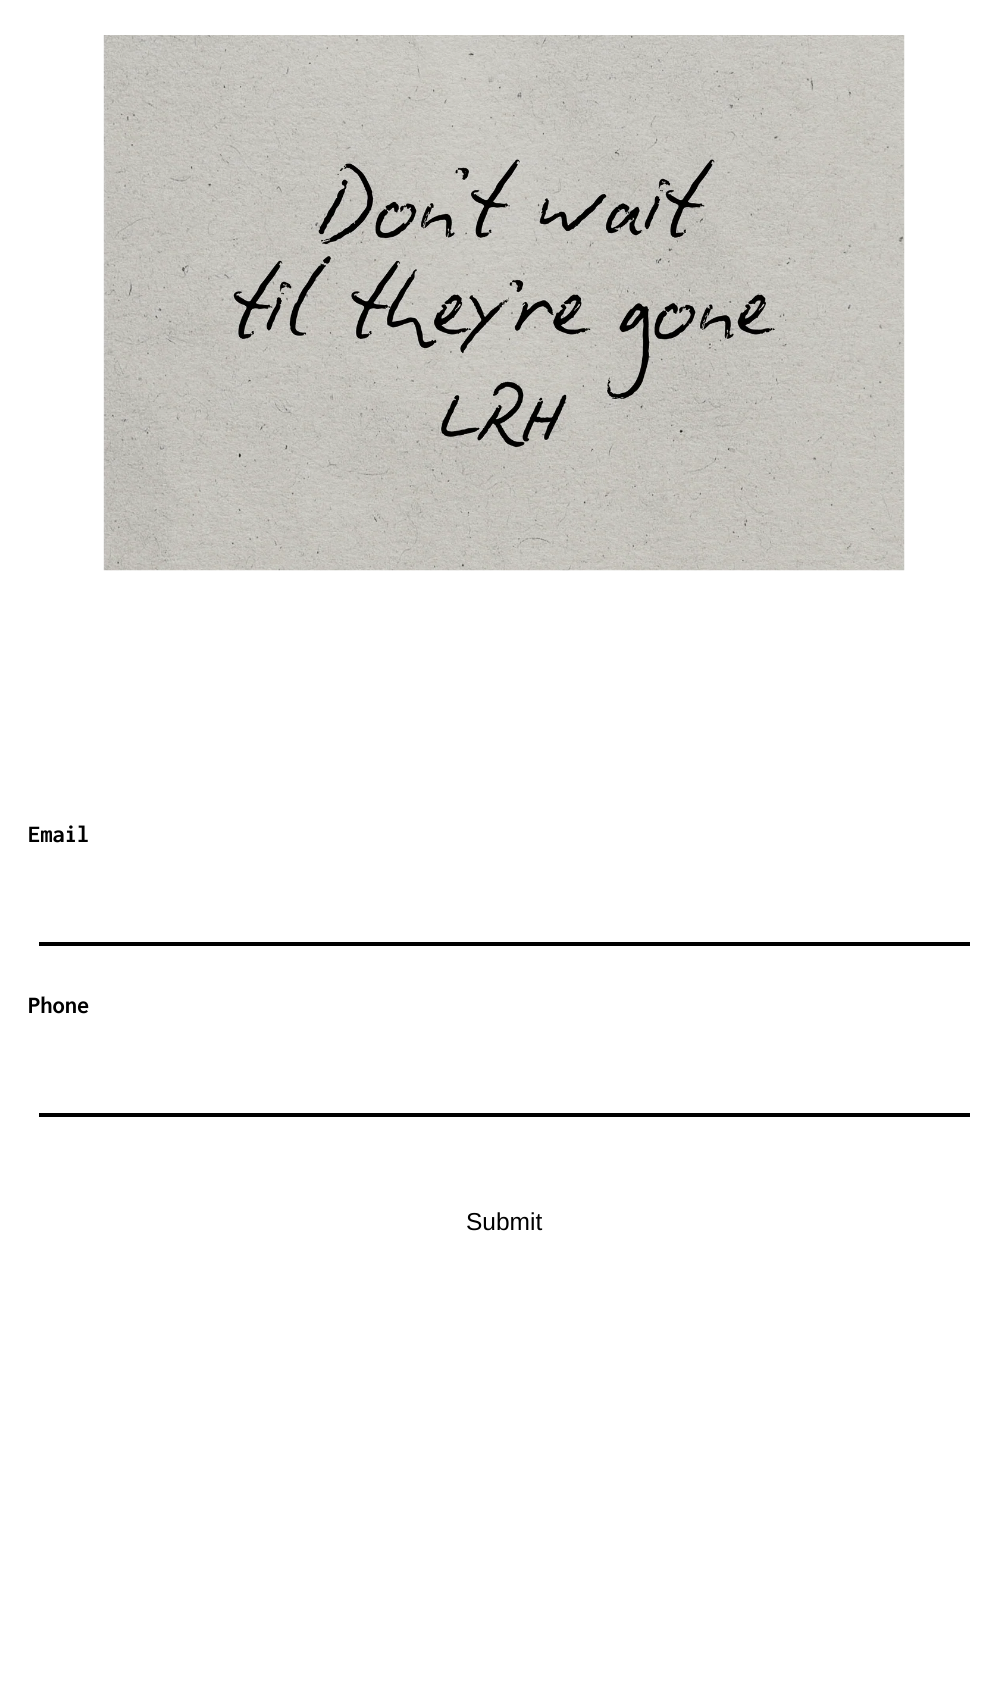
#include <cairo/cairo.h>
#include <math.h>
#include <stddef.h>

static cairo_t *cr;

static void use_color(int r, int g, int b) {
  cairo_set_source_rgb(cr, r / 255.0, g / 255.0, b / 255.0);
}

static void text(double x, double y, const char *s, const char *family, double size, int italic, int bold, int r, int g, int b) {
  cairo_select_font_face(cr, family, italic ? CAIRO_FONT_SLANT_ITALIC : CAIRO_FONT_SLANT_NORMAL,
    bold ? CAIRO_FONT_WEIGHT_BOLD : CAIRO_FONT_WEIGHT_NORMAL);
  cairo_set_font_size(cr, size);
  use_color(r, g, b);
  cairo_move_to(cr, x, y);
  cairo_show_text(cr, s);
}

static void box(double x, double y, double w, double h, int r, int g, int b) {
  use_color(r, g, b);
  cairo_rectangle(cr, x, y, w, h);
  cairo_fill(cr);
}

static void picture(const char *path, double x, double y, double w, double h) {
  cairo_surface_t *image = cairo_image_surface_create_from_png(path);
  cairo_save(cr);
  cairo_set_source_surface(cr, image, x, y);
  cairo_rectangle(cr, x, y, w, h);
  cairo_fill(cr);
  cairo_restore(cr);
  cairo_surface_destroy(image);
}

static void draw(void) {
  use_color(255, 255, 255);
  cairo_paint(cr);
  picture("img_01.png", 103, 35, 802, 536);
  box(39, 942, 931, 4, 0, 0, 0);
  box(39, 1113, 931, 4, 0, 0, 0);
  text(28, 842, "Email", "Inconsolata", 24.5, 0, 1, 0, 0, 0);
  text(28, 1013, "Phone", "Inconsolata", 24.5, 0, 1, 0, 0, 0);
  text(466, 1230, "Submit", "Liberation Sans", 24.5, 0, 0, 0, 0, 0);
}

int main(void) {
  cairo_surface_t *surface = cairo_image_surface_create(CAIRO_FORMAT_RGB24, 1008, 1689);
  cr = cairo_create(surface);
  cairo_font_options_t *options = cairo_font_options_create();
  cairo_font_options_set_hint_metrics(options, CAIRO_HINT_METRICS_OFF);
  cairo_font_options_set_hint_style(options, CAIRO_HINT_STYLE_NONE);
  cairo_set_font_options(cr, options);
  cairo_set_miter_limit(cr, 4);
  draw();
  cairo_surface_write_to_png(surface, "out.png");
  cairo_font_options_destroy(options);
  cairo_destroy(cr);
  cairo_surface_destroy(surface);
  return 0;
}
